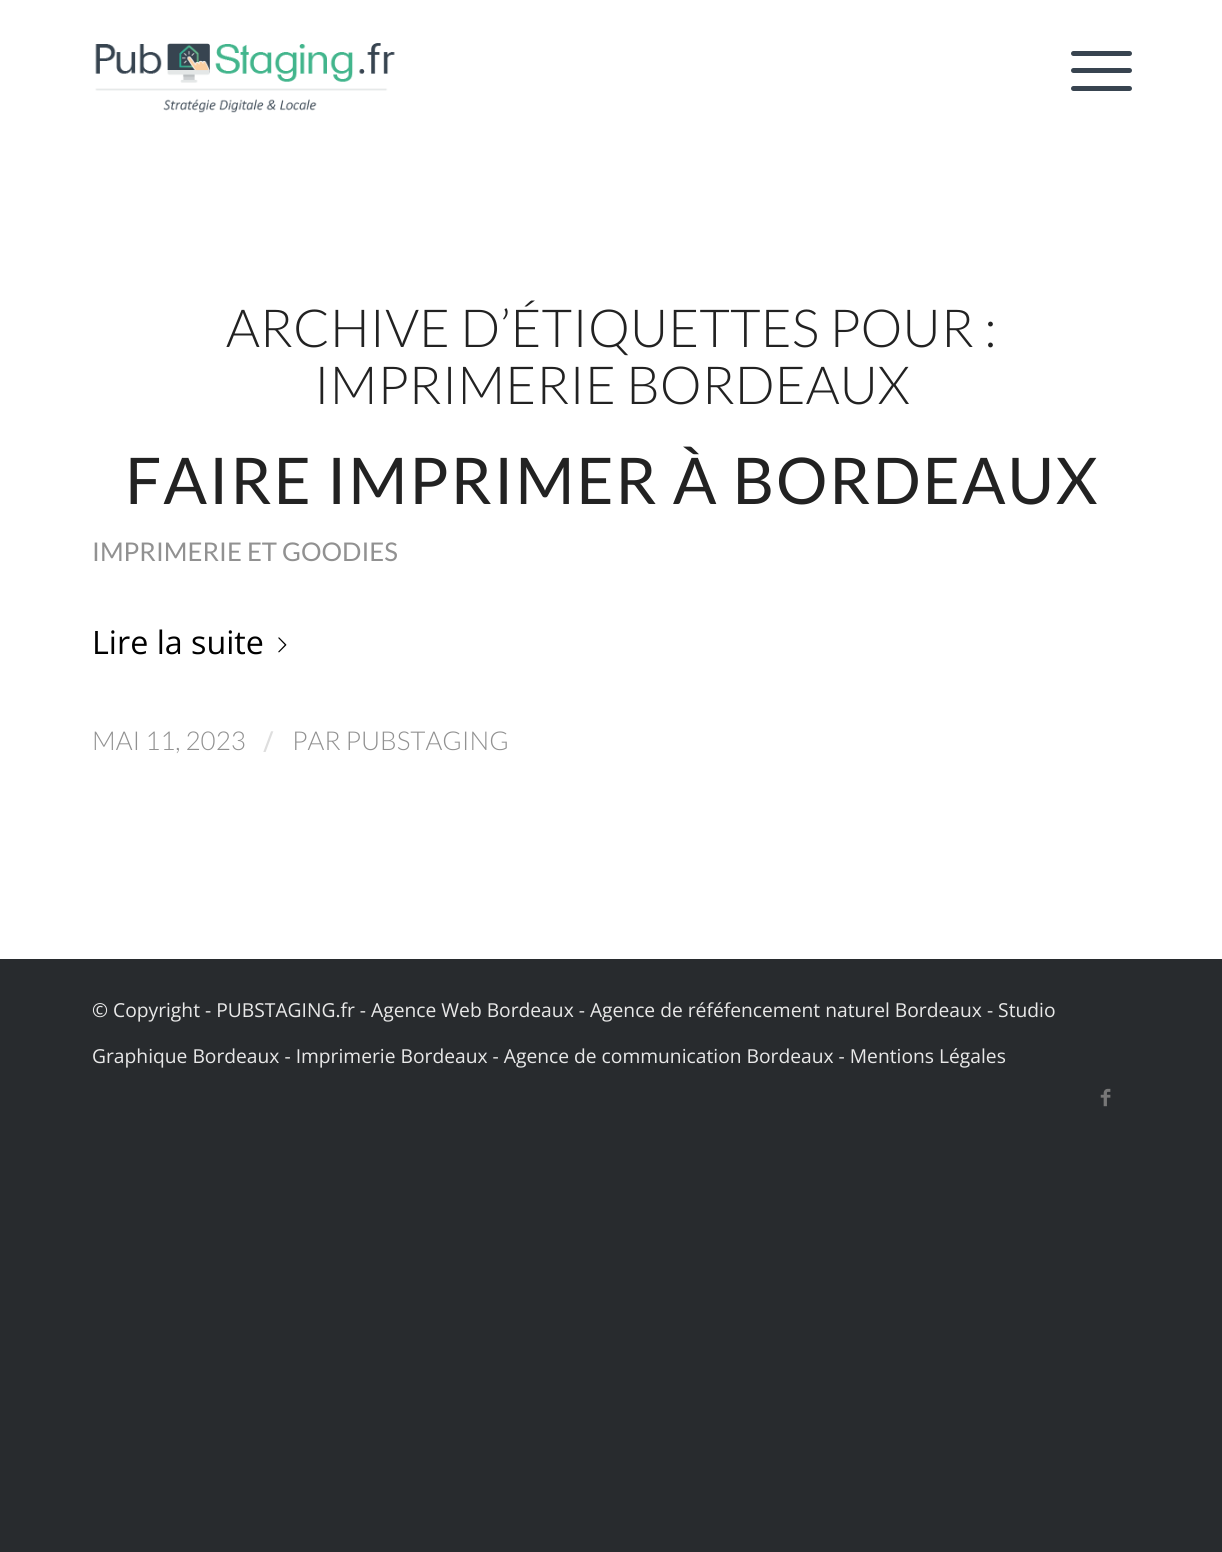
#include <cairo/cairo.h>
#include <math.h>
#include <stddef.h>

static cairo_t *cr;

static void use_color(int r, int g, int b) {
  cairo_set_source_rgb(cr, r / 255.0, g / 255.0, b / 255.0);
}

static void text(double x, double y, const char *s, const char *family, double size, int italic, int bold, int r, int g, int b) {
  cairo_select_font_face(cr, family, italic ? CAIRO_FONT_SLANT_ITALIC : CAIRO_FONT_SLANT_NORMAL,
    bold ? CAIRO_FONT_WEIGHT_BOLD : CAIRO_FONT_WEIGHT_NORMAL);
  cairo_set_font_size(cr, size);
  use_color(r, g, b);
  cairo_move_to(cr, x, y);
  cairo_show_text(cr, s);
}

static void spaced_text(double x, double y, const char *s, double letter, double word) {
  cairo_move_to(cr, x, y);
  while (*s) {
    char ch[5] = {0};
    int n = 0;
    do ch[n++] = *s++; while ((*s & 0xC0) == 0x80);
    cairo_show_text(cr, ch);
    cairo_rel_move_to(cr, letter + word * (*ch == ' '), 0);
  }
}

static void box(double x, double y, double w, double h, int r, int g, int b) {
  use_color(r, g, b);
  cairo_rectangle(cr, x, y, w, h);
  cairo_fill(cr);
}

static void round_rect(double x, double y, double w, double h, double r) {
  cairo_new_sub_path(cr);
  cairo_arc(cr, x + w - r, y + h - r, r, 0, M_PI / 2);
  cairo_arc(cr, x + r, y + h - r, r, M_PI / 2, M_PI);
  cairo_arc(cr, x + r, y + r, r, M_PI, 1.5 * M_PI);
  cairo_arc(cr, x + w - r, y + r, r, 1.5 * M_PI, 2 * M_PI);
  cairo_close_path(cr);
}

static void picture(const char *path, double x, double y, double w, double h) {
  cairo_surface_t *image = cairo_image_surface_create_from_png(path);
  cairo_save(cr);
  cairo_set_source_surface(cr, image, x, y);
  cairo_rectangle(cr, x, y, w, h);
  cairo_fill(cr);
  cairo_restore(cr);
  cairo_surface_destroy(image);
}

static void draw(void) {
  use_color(40, 43, 46);
  cairo_paint(cr);
  box(0, 0, 1222, 959, 255, 255, 255);
  picture("img_01.png", 95, 43, 300, 70);
  use_color(56, 68, 80);
  round_rect(1071, 68, 61, 5, 2.5);
  cairo_fill(cr);
  round_rect(1071, 51, 61, 5, 2.5);
  cairo_fill(cr);
  round_rect(1071, 86, 61, 5, 2.5);
  cairo_fill(cr);
  picture("img_02.png", 278, 637, 9, 16);
  picture("img_03.png", 1100, 1088, 11, 19);
  text(226, 347, "ARCHIVE D’ÉTIQUETTES POUR :", "Lato Light", 52.5, 0, 0, 34, 34, 34);
  text(314, 404, "IMPRIMERIE BORDEAUX", "Lato Light", 52.5, 0, 0, 34, 34, 34);
  cairo_select_font_face(cr, "Lato", CAIRO_FONT_SLANT_NORMAL, CAIRO_FONT_WEIGHT_NORMAL);
  cairo_set_font_size(cr, 64.4);
  spaced_text(125, 504, "FAIRE IMPRIMER À BORDEAUX", 1.75, 0);
  text(92, 561, "IMPRIMERIE ET GOODIES", "Lato", 25.75, 0, 0, 145, 145, 145);
  text(92, 654, "Lire la suite", "Open Sans", 32.25, 0, 0, 0, 0, 0);
  text(92, 750, "MAI 11, 2023", "Lato Light", 26, 0, 0, 145, 145, 145);
  text(263, 752, "/", "Open Sans", 29, 0, 0, 222, 222, 222);
  text(292, 750, "PAR PUBSTAGING", "Lato Light", 26, 0, 0, 145, 145, 145);
  text(92, 1017, "© Copyright - PUBSTAGING.fr - Agence Web Bordeaux - Agence de réféfencement naturel Bordeaux - Studio", "Open Sans", 19.25, 0, 0, 232, 232, 232);
  text(92, 1063, "Graphique Bordeaux - Imprimerie Bordeaux - Agence de communication Bordeaux - Mentions Légales", "Open Sans", 19.25, 0, 0, 232, 232, 232);
}

int main(void) {
  cairo_surface_t *surface = cairo_image_surface_create(CAIRO_FORMAT_RGB24, 1222, 1552);
  cr = cairo_create(surface);
  cairo_font_options_t *options = cairo_font_options_create();
  cairo_font_options_set_hint_metrics(options, CAIRO_HINT_METRICS_OFF);
  cairo_font_options_set_hint_style(options, CAIRO_HINT_STYLE_NONE);
  cairo_set_font_options(cr, options);
  cairo_set_miter_limit(cr, 4);
  draw();
  cairo_surface_write_to_png(surface, "out.png");
  cairo_font_options_destroy(options);
  cairo_destroy(cr);
  cairo_surface_destroy(surface);
  return 0;
}
